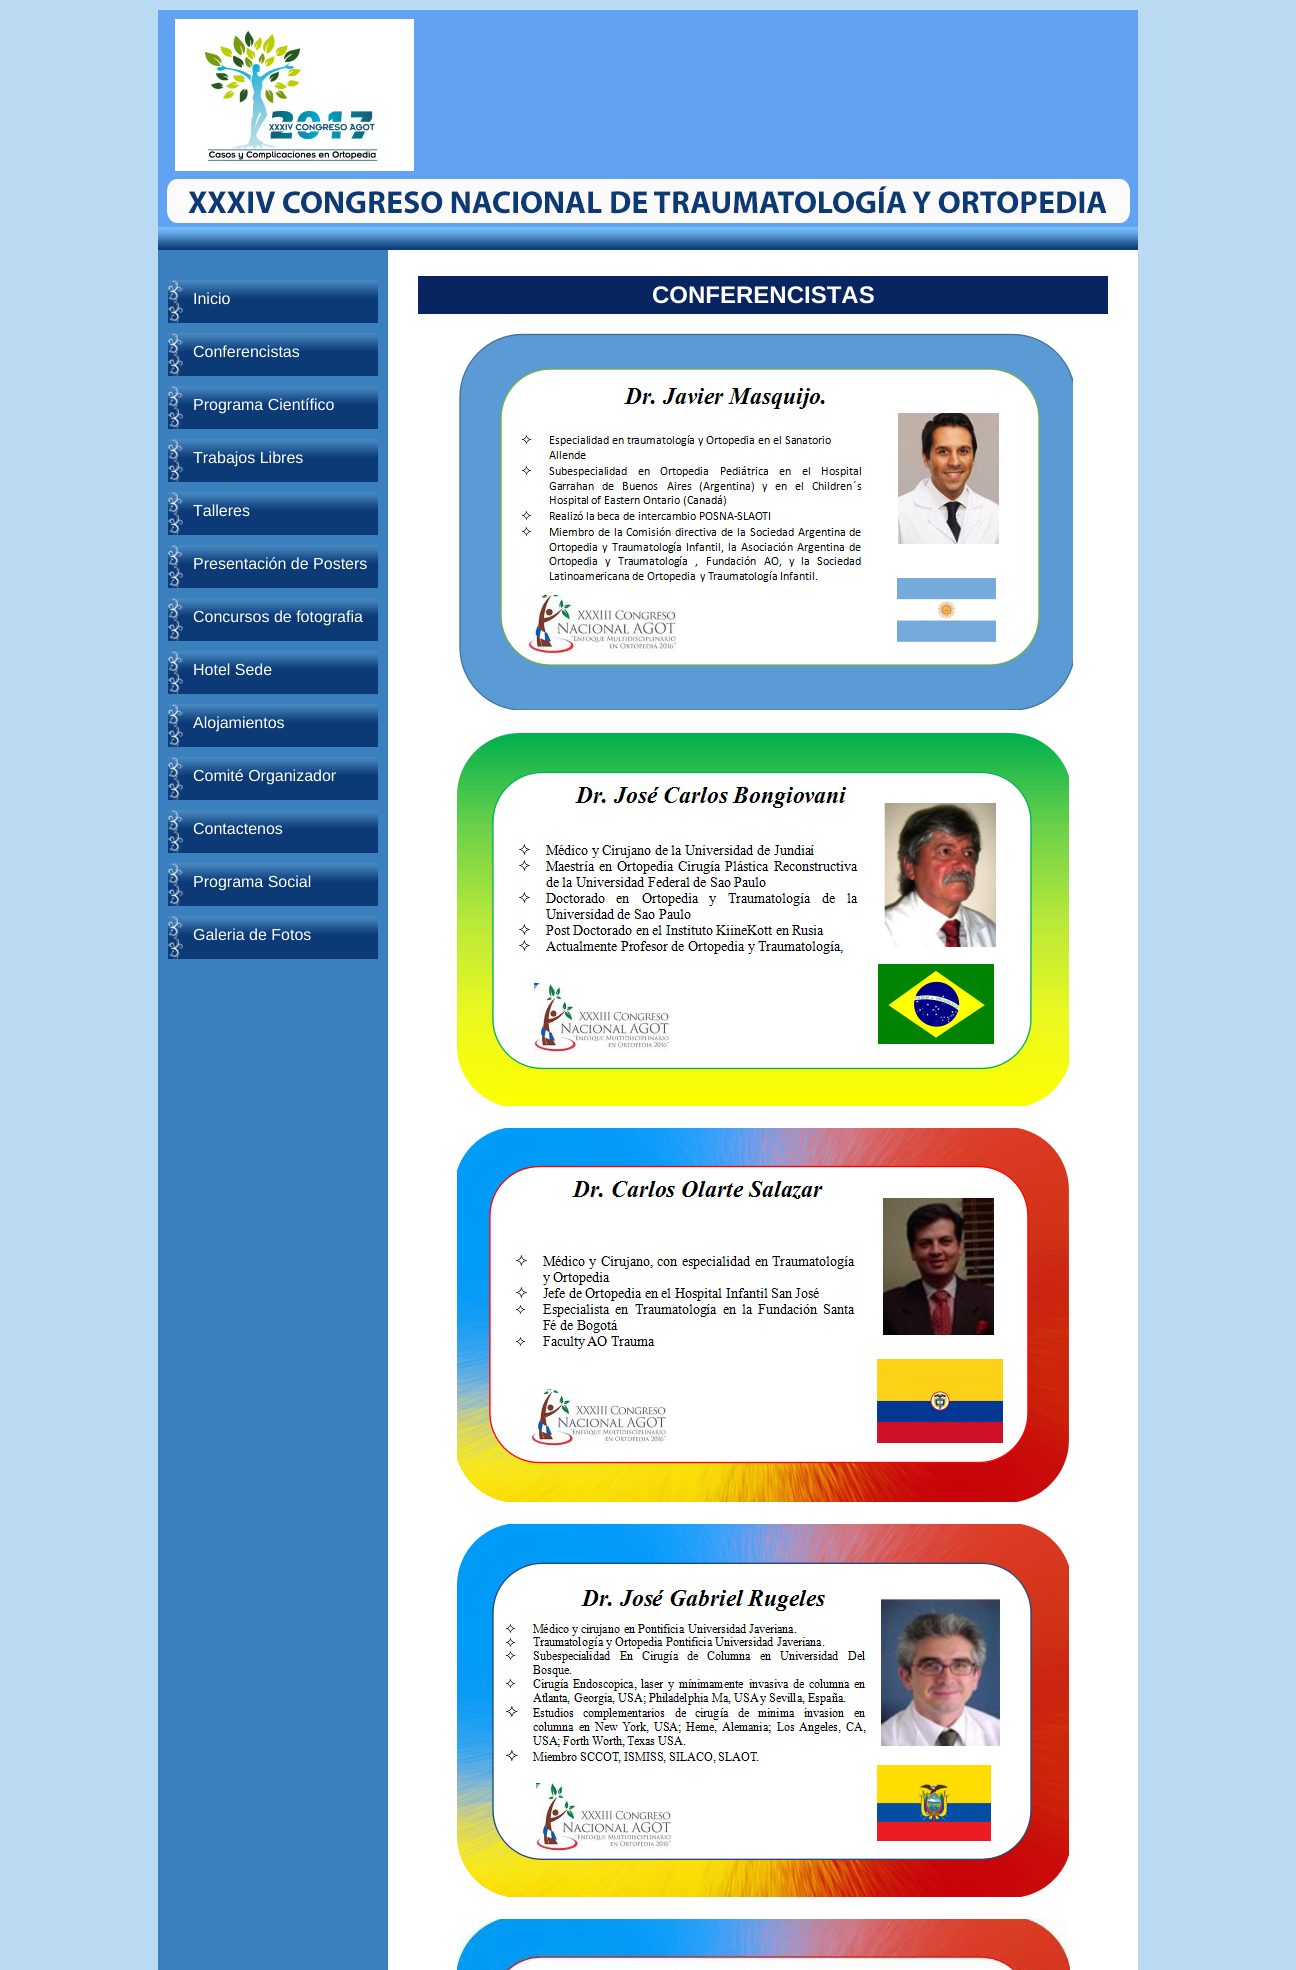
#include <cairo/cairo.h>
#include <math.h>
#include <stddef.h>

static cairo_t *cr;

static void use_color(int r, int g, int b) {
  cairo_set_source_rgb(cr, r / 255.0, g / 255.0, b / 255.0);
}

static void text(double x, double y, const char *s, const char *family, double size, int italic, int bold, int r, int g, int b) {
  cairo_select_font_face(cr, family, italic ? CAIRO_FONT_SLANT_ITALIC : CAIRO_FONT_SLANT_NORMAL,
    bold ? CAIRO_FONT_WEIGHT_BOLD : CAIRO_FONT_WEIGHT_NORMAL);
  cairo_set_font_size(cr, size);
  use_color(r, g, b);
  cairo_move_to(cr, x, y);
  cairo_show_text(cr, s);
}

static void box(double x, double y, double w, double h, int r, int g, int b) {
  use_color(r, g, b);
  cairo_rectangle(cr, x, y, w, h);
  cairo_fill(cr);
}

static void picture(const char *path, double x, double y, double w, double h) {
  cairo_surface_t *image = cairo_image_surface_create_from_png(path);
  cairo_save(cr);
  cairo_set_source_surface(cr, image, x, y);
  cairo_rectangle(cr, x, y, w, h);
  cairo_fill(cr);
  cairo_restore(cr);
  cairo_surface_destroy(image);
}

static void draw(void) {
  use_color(186, 217, 243);
  cairo_paint(cr);
  picture("img_01.png", 158, 10, 980, 240);
  box(158, 250, 230, 1720, 58, 128, 191);
  picture("img_02.png", 168, 280, 210, 43);
  picture("img_03.png", 168, 280, 15, 43);
  picture("img_02.png", 168, 333, 210, 43);
  picture("img_03.png", 168, 333, 15, 43);
  picture("img_02.png", 168, 386, 210, 43);
  picture("img_03.png", 168, 386, 15, 43);
  picture("img_02.png", 168, 439, 210, 43);
  picture("img_03.png", 168, 439, 15, 43);
  picture("img_02.png", 168, 492, 210, 43);
  picture("img_03.png", 168, 492, 15, 43);
  picture("img_02.png", 168, 545, 210, 43);
  picture("img_03.png", 168, 545, 15, 43);
  picture("img_02.png", 168, 598, 210, 43);
  picture("img_03.png", 168, 598, 15, 43);
  picture("img_02.png", 168, 651, 210, 43);
  picture("img_03.png", 168, 651, 15, 43);
  picture("img_02.png", 168, 704, 210, 43);
  picture("img_03.png", 168, 704, 15, 43);
  picture("img_02.png", 168, 757, 210, 43);
  picture("img_03.png", 168, 757, 15, 43);
  picture("img_02.png", 168, 810, 210, 43);
  picture("img_03.png", 168, 810, 15, 43);
  picture("img_02.png", 168, 863, 210, 43);
  picture("img_03.png", 168, 863, 15, 43);
  picture("img_02.png", 168, 916, 210, 43);
  picture("img_03.png", 168, 916, 15, 43);
  box(388, 250, 750, 1720, 255, 255, 255);
  box(418, 276, 690, 38, 9, 37, 97);
  picture("img_04.png", 459, 333, 614, 377);
  picture("img_05.png", 457, 733, 612, 373);
  picture("img_06.png", 457, 1128, 612, 374);
  picture("img_07.png", 457, 1524, 612, 373);
  picture("img_08.png", 457, 1919, 613, 51);
  text(193, 304, "Inicio", "Liberation Sans", 16, 0, 0, 255, 255, 255);
  text(193, 357, "Conferencistas", "Liberation Sans", 16, 0, 0, 255, 255, 255);
  text(193, 410, "Programa Científico", "Liberation Sans", 16, 0, 0, 255, 255, 255);
  text(193, 463, "Trabajos Libres", "Liberation Sans", 16, 0, 0, 255, 255, 255);
  text(193, 516, "Talleres", "Liberation Sans", 16, 0, 0, 255, 255, 255);
  text(193, 569, "Presentación de Posters", "Liberation Sans", 16, 0, 0, 255, 255, 255);
  text(193, 622, "Concursos de fotografia", "Liberation Sans", 16, 0, 0, 255, 255, 255);
  text(193, 675, "Hotel Sede", "Liberation Sans", 16, 0, 0, 255, 255, 255);
  text(193, 728, "Alojamientos", "Liberation Sans", 16, 0, 0, 255, 255, 255);
  text(193, 781, "Comité Organizador", "Liberation Sans", 16, 0, 0, 255, 255, 255);
  text(193, 834, "Contactenos", "Liberation Sans", 16, 0, 0, 255, 255, 255);
  text(193, 887, "Programa Social", "Liberation Sans", 16, 0, 0, 255, 255, 255);
  text(193, 940, "Galeria de Fotos", "Liberation Sans", 16, 0, 0, 255, 255, 255);
  text(652, 303, "CONFERENCISTAS", "Liberation Sans", 24, 0, 1, 255, 255, 255);
}

int main(void) {
  cairo_surface_t *surface = cairo_image_surface_create(CAIRO_FORMAT_RGB24, 1296, 1970);
  cr = cairo_create(surface);
  cairo_font_options_t *options = cairo_font_options_create();
  cairo_font_options_set_hint_metrics(options, CAIRO_HINT_METRICS_OFF);
  cairo_font_options_set_hint_style(options, CAIRO_HINT_STYLE_NONE);
  cairo_set_font_options(cr, options);
  cairo_set_miter_limit(cr, 4);
  draw();
  cairo_surface_write_to_png(surface, "out.png");
  cairo_font_options_destroy(options);
  cairo_destroy(cr);
  cairo_surface_destroy(surface);
  return 0;
}
